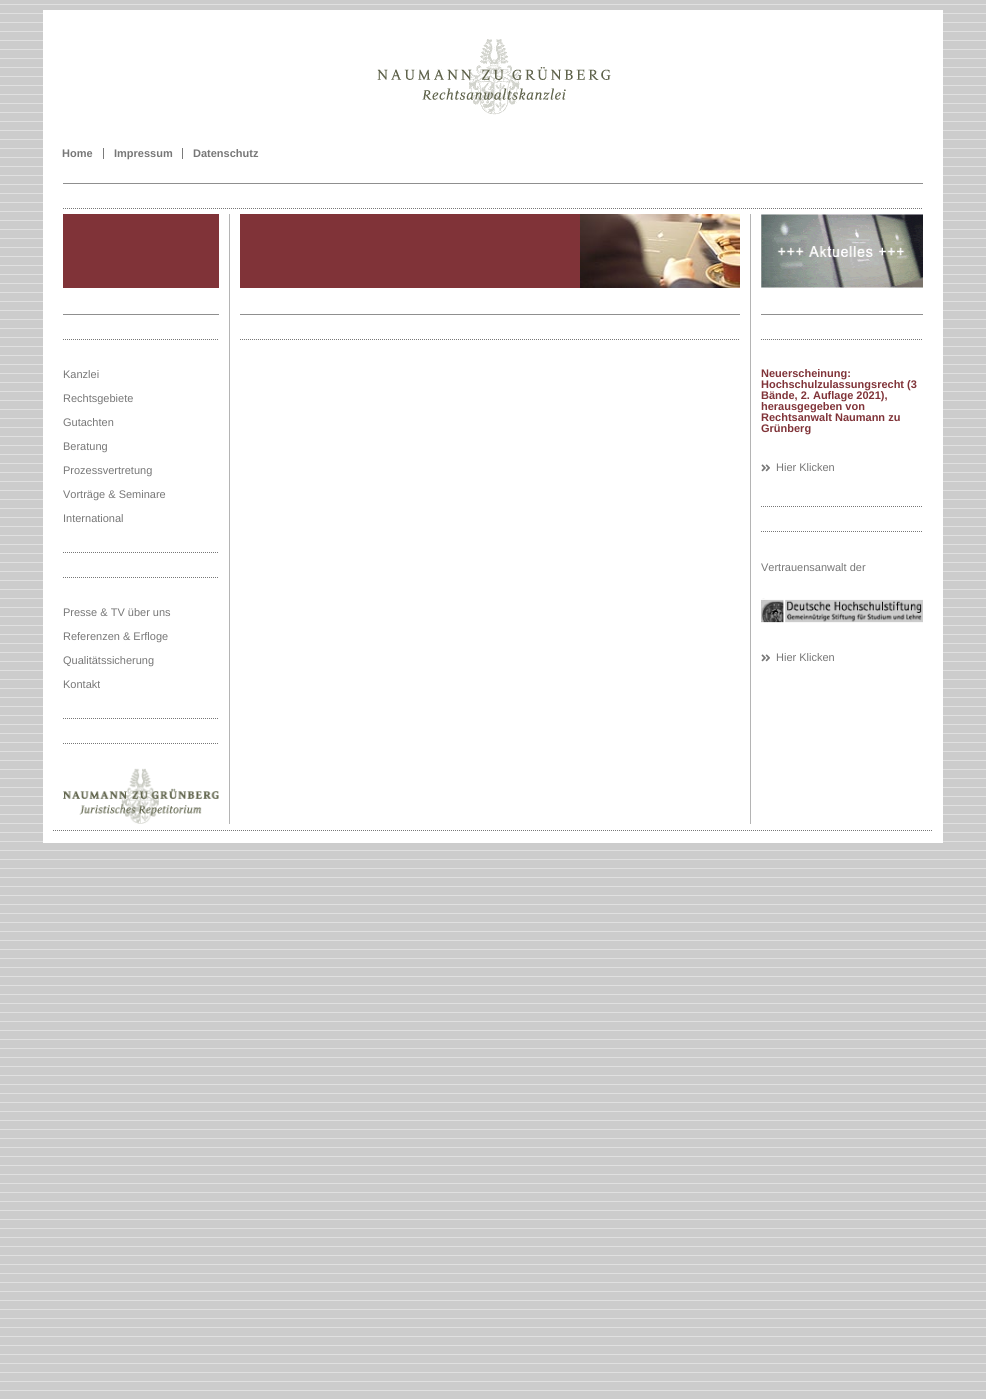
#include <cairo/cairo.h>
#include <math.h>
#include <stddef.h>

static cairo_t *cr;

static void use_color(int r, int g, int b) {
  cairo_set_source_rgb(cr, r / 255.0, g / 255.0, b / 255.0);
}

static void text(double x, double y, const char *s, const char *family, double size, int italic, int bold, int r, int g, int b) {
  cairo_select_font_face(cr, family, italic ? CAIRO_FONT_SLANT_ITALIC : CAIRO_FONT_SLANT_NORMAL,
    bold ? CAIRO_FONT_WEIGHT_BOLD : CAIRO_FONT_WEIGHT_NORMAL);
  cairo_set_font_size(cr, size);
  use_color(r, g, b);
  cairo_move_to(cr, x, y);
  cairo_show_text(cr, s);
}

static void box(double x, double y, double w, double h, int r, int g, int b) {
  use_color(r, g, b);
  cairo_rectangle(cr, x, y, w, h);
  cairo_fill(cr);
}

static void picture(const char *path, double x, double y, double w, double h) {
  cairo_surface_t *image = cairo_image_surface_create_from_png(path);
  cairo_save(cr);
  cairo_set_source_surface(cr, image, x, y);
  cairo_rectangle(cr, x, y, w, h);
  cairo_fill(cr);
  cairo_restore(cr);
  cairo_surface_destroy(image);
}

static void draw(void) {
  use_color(255, 255, 255);
  cairo_paint(cr);
  picture("img_01.png", 0, 853, 986, 546);
  picture("img_02.png", 0, 0, 986, 853);
  box(43, 10, 900, 833, 255, 255, 255);
  picture("img_03.png", 377, 39, 234, 76);
  box(103, 148, 1, 11, 122, 122, 122);
  box(182, 148, 1, 11, 122, 122, 122);
  box(63, 183, 860, 1, 143, 143, 143);
  cairo_new_path(cr);
  cairo_move_to(cr, 63, 208.5);
  cairo_line_to(cr, 923, 208.5);
  use_color(119, 119, 119);
  cairo_set_line_width(cr, 1);
  cairo_set_dash(cr, (double[]){1, 1}, 2, 0);
  cairo_stroke(cr);
  box(63, 214, 156, 74, 128, 51, 56);
  box(63, 314, 156, 1, 143, 143, 143);
  cairo_new_path(cr);
  cairo_move_to(cr, 63, 339.5);
  cairo_line_to(cr, 219, 339.5);
  use_color(119, 119, 119);
  cairo_stroke(cr);
  cairo_new_path(cr);
  cairo_move_to(cr, 63, 552.5);
  cairo_line_to(cr, 219, 552.5);
  cairo_stroke(cr);
  cairo_new_path(cr);
  cairo_move_to(cr, 63, 577.5);
  cairo_line_to(cr, 219, 577.5);
  cairo_stroke(cr);
  cairo_new_path(cr);
  cairo_move_to(cr, 63, 718.5);
  cairo_line_to(cr, 219, 718.5);
  cairo_stroke(cr);
  cairo_new_path(cr);
  cairo_move_to(cr, 63, 743.5);
  cairo_line_to(cr, 219, 743.5);
  cairo_stroke(cr);
  picture("img_04.png", 63, 768, 156, 56);
  box(750, 214, 1, 610, 180, 180, 180);
  box(229, 214, 1, 610, 180, 180, 180);
  box(240, 214, 340, 74, 128, 51, 56);
  picture("img_05.png", 580, 214, 160, 74);
  box(240, 314, 500, 1, 143, 143, 143);
  cairo_new_path(cr);
  cairo_move_to(cr, 240, 339.5);
  cairo_line_to(cr, 740, 339.5);
  use_color(119, 119, 119);
  cairo_stroke(cr);
  picture("img_06.png", 761, 214, 162, 74);
  box(761, 314, 162, 1, 143, 143, 143);
  cairo_new_path(cr);
  cairo_move_to(cr, 761, 339.5);
  cairo_line_to(cr, 923, 339.5);
  use_color(119, 119, 119);
  cairo_stroke(cr);
  picture("img_07.png", 761, 464, 9, 8);
  cairo_new_path(cr);
  cairo_move_to(cr, 761, 506.5);
  cairo_line_to(cr, 923, 506.5);
  cairo_stroke(cr);
  cairo_new_path(cr);
  cairo_move_to(cr, 761, 531.5);
  cairo_line_to(cr, 923, 531.5);
  cairo_stroke(cr);
  picture("img_08.png", 761, 598, 162, 25);
  picture("img_07.png", 761, 654, 9, 8);
  cairo_new_path(cr);
  cairo_move_to(cr, 53, 830.5);
  cairo_line_to(cr, 933, 830.5);
  cairo_stroke(cr);
  text(62, 157, "Home", "Liberation Sans", 11, 0, 1, 119, 119, 119);
  text(114, 157, "Impressum", "Liberation Sans", 11, 0, 1, 119, 119, 119);
  text(193, 157, "Datenschutz", "Liberation Sans", 11, 0, 1, 119, 119, 119);
  text(63, 378, "Kanzlei", "Liberation Sans", 11, 0, 0, 119, 119, 119);
  text(63, 402, "Rechtsgebiete", "Liberation Sans", 11, 0, 0, 119, 119, 119);
  text(63, 426, "Gutachten", "Liberation Sans", 11, 0, 0, 119, 119, 119);
  text(63, 450, "Beratung", "Liberation Sans", 11, 0, 0, 119, 119, 119);
  text(63, 474, "Prozessvertretung", "Liberation Sans", 11, 0, 0, 119, 119, 119);
  text(63, 498, "Vorträge & Seminare", "Liberation Sans", 11, 0, 0, 119, 119, 119);
  text(63, 522, "International", "Liberation Sans", 11, 0, 0, 119, 119, 119);
  text(63, 616, "Presse & TV über uns", "Liberation Sans", 11, 0, 0, 119, 119, 119);
  text(63, 640, "Referenzen & Erfloge", "Liberation Sans", 11, 0, 0, 119, 119, 119);
  text(63, 664, "Qualitätssicherung", "Liberation Sans", 11, 0, 0, 119, 119, 119);
  text(63, 688, "Kontakt", "Liberation Sans", 11, 0, 0, 119, 119, 119);
  text(761, 377, "Neuerscheinung:", "Liberation Sans", 11, 0, 1, 128, 51, 56);
  text(761, 388, "Hochschulzulassungsrecht (3", "Liberation Sans", 11, 0, 1, 128, 51, 56);
  text(761, 399, "Bände, 2. Auflage 2021),", "Liberation Sans", 11, 0, 1, 128, 51, 56);
  text(761, 410, "herausgegeben von", "Liberation Sans", 11, 0, 1, 128, 51, 56);
  text(761, 421, "Rechtsanwalt Naumann zu", "Liberation Sans", 11, 0, 1, 128, 51, 56);
  text(761, 432, "Grünberg", "Liberation Sans", 11, 0, 1, 128, 51, 56);
  text(776, 471, "Hier Klicken", "Liberation Sans", 11, 0, 0, 119, 119, 119);
  text(761, 571, "Vertrauensanwalt der", "Liberation Sans", 11, 0, 0, 119, 119, 119);
  text(776, 661, "Hier Klicken", "Liberation Sans", 11, 0, 0, 119, 119, 119);
}

int main(void) {
  cairo_surface_t *surface = cairo_image_surface_create(CAIRO_FORMAT_RGB24, 986, 1399);
  cr = cairo_create(surface);
  cairo_font_options_t *options = cairo_font_options_create();
  cairo_font_options_set_hint_metrics(options, CAIRO_HINT_METRICS_OFF);
  cairo_font_options_set_hint_style(options, CAIRO_HINT_STYLE_NONE);
  cairo_set_font_options(cr, options);
  cairo_set_miter_limit(cr, 4);
  draw();
  cairo_surface_write_to_png(surface, "out.png");
  cairo_font_options_destroy(options);
  cairo_destroy(cr);
  cairo_surface_destroy(surface);
  return 0;
}
